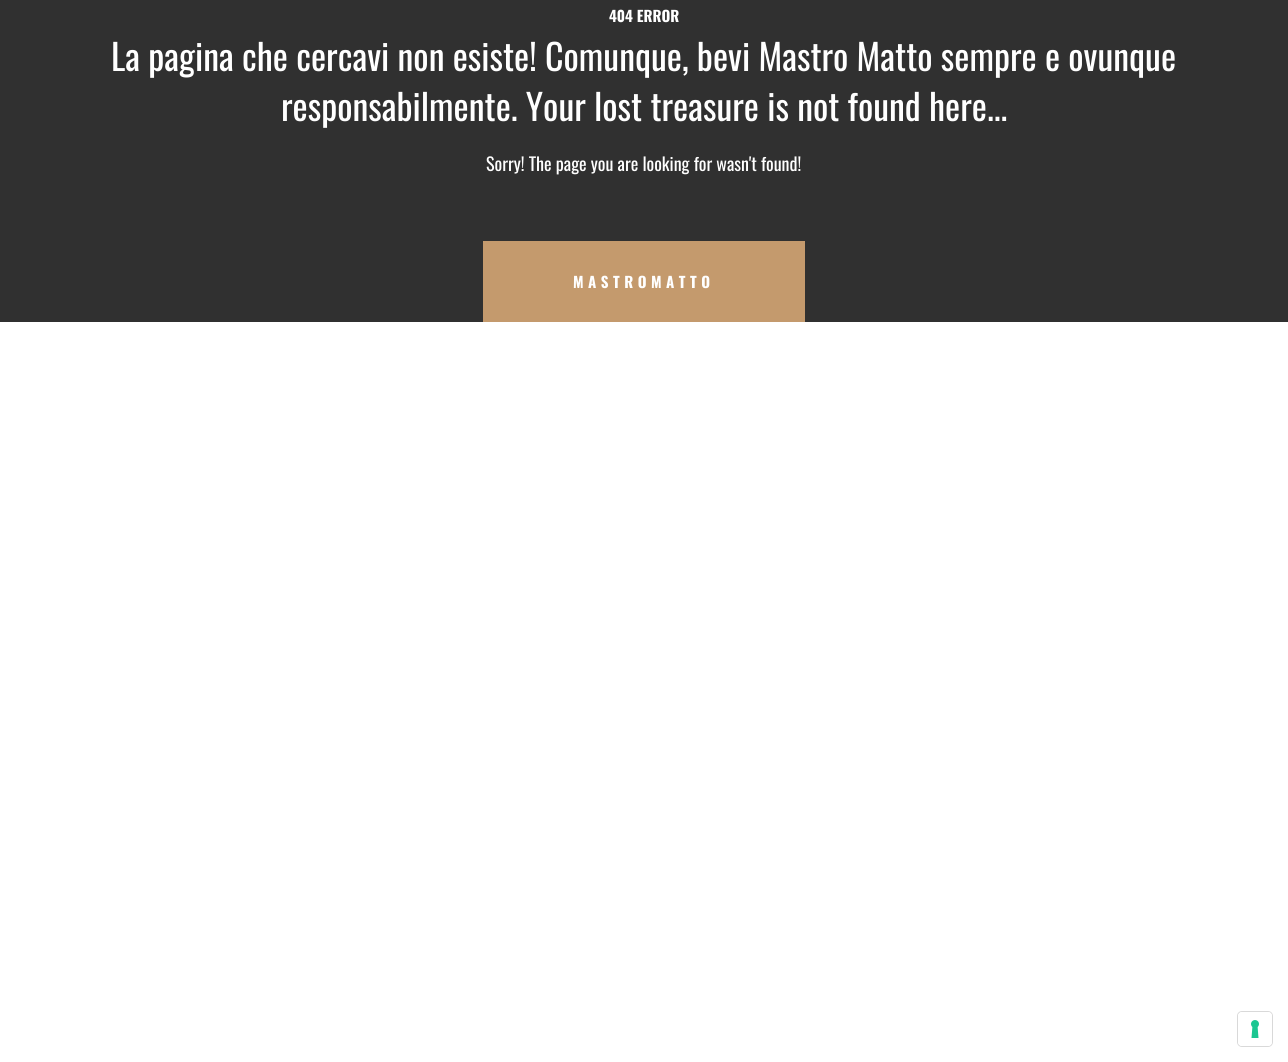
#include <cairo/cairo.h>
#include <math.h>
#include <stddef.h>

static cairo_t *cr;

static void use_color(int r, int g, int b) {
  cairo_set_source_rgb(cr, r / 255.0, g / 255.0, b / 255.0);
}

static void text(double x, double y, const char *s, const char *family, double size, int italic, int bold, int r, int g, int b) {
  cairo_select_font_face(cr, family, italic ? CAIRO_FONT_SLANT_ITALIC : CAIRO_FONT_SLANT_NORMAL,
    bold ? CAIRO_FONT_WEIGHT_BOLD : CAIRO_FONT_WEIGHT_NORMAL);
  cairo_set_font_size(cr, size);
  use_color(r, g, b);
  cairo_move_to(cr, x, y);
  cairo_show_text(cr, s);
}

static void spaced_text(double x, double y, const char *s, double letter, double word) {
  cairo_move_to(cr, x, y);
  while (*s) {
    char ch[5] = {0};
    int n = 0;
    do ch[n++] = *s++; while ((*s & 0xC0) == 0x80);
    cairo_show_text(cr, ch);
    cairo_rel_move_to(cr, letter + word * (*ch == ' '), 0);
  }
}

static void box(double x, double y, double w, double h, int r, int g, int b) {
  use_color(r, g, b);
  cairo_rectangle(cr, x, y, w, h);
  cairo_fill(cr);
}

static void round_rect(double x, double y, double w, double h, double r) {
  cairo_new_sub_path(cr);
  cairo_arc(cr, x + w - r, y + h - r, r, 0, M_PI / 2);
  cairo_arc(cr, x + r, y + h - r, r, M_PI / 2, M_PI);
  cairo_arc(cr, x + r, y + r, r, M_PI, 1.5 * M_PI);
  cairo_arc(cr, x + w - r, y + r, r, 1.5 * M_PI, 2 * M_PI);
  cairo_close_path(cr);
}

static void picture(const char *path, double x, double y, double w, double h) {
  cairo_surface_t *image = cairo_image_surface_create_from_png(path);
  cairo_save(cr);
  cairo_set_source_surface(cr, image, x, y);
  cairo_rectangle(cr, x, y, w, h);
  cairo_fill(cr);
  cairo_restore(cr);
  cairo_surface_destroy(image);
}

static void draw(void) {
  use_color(255, 255, 255);
  cairo_paint(cr);
  box(0, 0, 1288, 322, 48, 48, 48);
  box(483, 241, 322, 81, 196, 154, 109);
  round_rect(1237.5, 1011.5, 35, 35, 4.5);
  use_color(217, 217, 217);
  cairo_set_line_width(cr, 1);
  cairo_stroke(cr);
  use_color(255, 255, 255);
  round_rect(1238, 1012, 34, 34, 4);
  cairo_fill(cr);
  picture("img_01.png", 1251, 1020, 8, 18);
  text(609, 22, "404 ERROR", "Oswald", 15, 0, 1, 255, 255, 255);
  text(111, 71, "La pagina che cercavi non esiste! Comunque, bevi Mastro Matto sempre e ovunque", "Oswald", 36, 0, 0, 255, 255, 255);
  text(281, 121, "responsabilmente. Your lost treasure is not found here...", "Oswald", 36, 0, 0, 255, 255, 255);
  text(486, 171, "Sorry! The page you are looking for wasn't found!", "Oswald", 18, 0, 0, 255, 255, 255);
  cairo_select_font_face(cr, "Oswald", CAIRO_FONT_SLANT_NORMAL, CAIRO_FONT_WEIGHT_BOLD);
  cairo_set_font_size(cr, 15);
  spaced_text(573, 288, "MASTROMATTO", 4.5, 0);
}

int main(void) {
  cairo_surface_t *surface = cairo_image_surface_create(CAIRO_FORMAT_RGB24, 1288, 1062);
  cr = cairo_create(surface);
  cairo_font_options_t *options = cairo_font_options_create();
  cairo_font_options_set_hint_metrics(options, CAIRO_HINT_METRICS_OFF);
  cairo_font_options_set_hint_style(options, CAIRO_HINT_STYLE_NONE);
  cairo_set_font_options(cr, options);
  cairo_set_miter_limit(cr, 4);
  draw();
  cairo_surface_write_to_png(surface, "out.png");
  cairo_font_options_destroy(options);
  cairo_destroy(cr);
  cairo_surface_destroy(surface);
  return 0;
}
